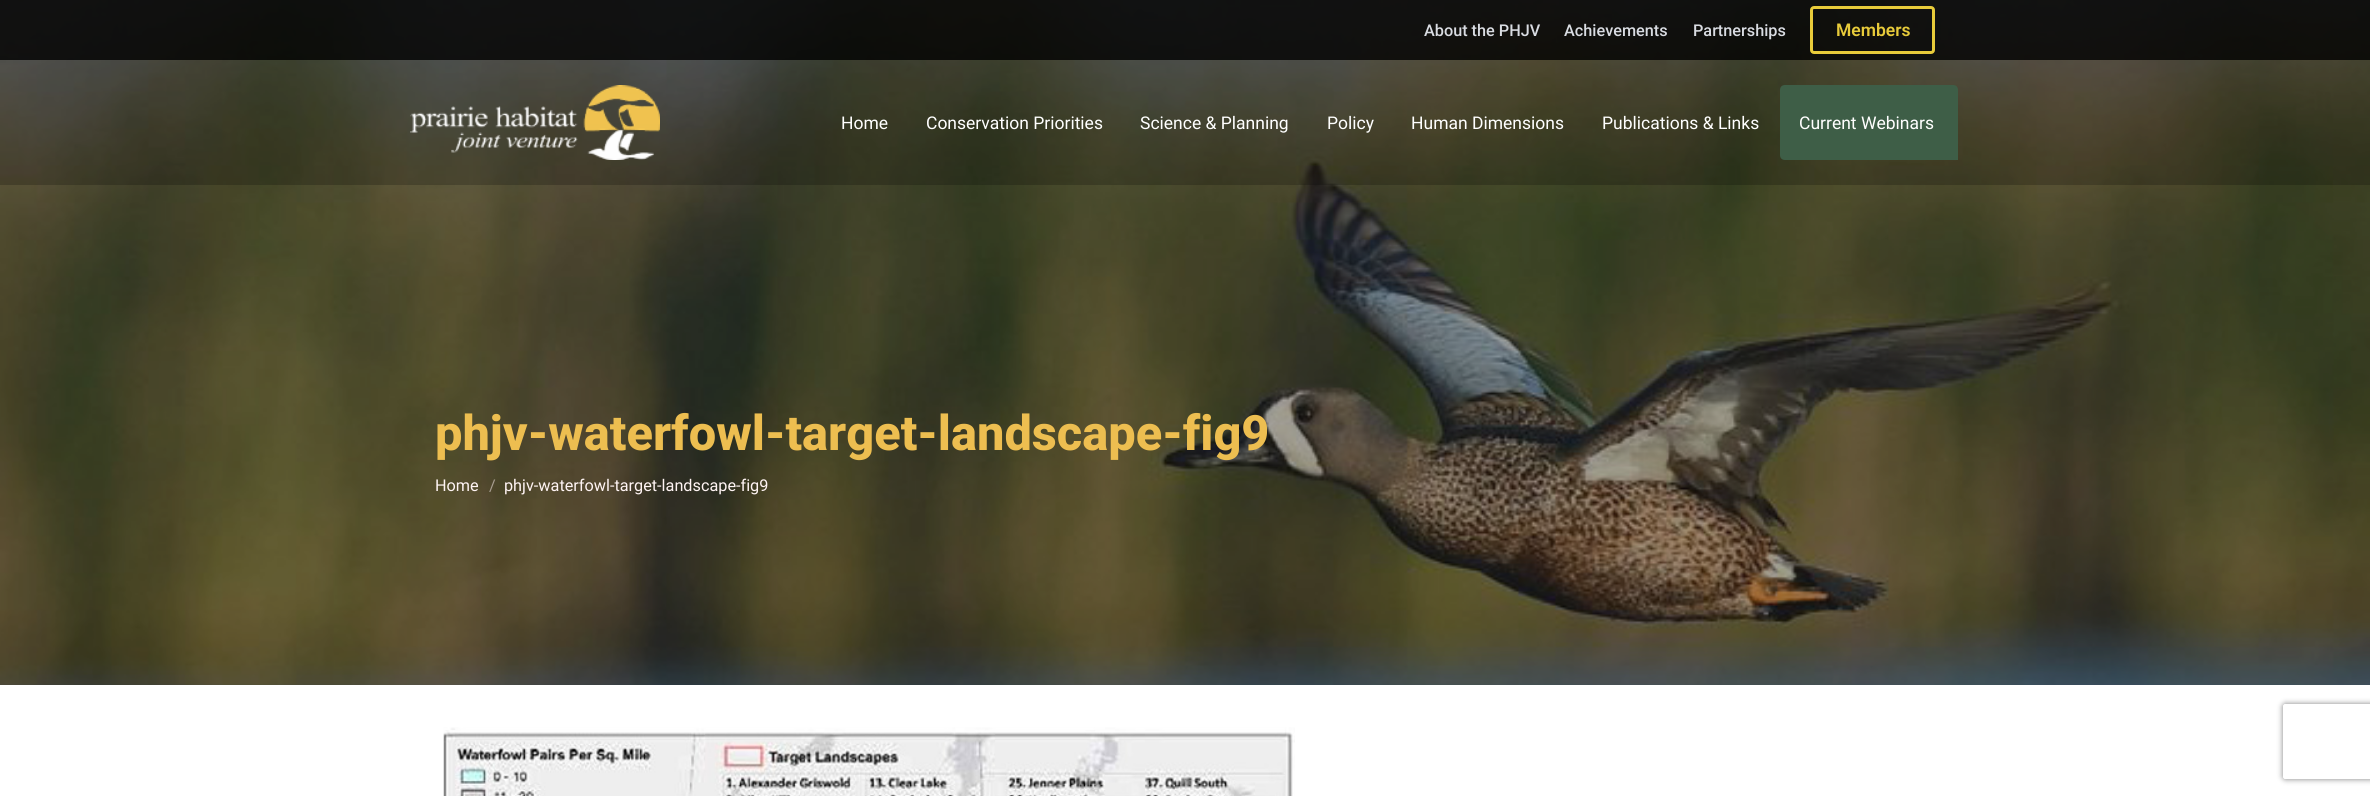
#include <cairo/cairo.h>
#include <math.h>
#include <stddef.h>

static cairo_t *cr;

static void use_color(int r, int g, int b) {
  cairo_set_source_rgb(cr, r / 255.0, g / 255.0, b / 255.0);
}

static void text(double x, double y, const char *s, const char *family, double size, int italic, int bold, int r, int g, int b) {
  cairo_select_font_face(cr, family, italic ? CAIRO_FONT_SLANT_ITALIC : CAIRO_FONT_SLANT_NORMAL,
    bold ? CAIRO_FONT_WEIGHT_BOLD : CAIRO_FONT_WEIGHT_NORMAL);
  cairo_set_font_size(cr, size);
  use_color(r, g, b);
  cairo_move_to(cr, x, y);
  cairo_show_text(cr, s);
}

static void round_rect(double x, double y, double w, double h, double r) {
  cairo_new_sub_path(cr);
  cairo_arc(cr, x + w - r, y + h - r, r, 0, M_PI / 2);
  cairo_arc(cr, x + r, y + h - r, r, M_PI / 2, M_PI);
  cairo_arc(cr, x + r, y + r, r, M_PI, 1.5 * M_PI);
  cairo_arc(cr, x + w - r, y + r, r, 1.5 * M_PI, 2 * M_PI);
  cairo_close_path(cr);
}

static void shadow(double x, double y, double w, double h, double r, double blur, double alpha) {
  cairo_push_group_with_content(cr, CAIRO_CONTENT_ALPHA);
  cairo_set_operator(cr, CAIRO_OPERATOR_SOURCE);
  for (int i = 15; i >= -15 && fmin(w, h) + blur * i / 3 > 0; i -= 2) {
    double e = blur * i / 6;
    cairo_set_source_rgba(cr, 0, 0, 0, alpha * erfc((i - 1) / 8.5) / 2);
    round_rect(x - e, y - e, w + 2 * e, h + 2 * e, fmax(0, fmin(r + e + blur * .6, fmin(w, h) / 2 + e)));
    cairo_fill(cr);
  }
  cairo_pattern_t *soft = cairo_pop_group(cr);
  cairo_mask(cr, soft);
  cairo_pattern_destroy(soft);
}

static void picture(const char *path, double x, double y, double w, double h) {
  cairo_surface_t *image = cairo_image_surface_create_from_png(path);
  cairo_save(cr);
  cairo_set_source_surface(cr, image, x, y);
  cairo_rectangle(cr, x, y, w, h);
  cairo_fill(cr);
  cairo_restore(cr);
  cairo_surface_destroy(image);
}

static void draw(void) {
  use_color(255, 255, 255);
  cairo_paint(cr);
  picture("img_02.png", 0, 0, 2370, 685);
  cairo_set_source_rgba(cr, 0, 0, 0, 0.21);
  cairo_rectangle(cr, 0, 0, 2370, 185);
  cairo_fill(cr);
  cairo_set_source_rgba(cr, 0, 0, 0, 0.79);
  cairo_rectangle(cr, 0, 0, 2370, 60);
  cairo_fill(cr);
  round_rect(1811.5, 7.5, 122, 45, 2.5);
  use_color(232, 203, 58);
  cairo_set_line_width(cr, 3);
  cairo_stroke(cr);
  picture("img_01.png", 410, 85, 250, 75);
  use_color(62, 94, 71);
  cairo_new_path(cr);
  cairo_move_to(cr, 1785, 85);
  cairo_line_to(cr, 1953, 85);
  cairo_curve_to(cr, 1956, 85, 1958, 87, 1958, 90);
  cairo_line_to(cr, 1958, 160);
  cairo_line_to(cr, 1785, 160);
  cairo_curve_to(cr, 1782, 160, 1780, 158, 1780, 155);
  cairo_line_to(cr, 1780, 90);
  cairo_curve_to(cr, 1780, 87, 1782, 85, 1785, 85);
  cairo_close_path(cr);
  cairo_fill(cr);
  picture("img_03.png", 443, 727, 852, 69);
  cairo_save(cr);
  cairo_set_fill_rule(cr, CAIRO_FILL_RULE_EVEN_ODD);
  cairo_new_path(cr);
  cairo_move_to(cr, 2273, 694);
  cairo_line_to(cr, 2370, 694);
  cairo_line_to(cr, 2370, 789);
  cairo_line_to(cr, 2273, 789);
  cairo_close_path(cr);
  cairo_move_to(cr, 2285.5, 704);
  cairo_line_to(cr, 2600.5, 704);
  cairo_curve_to(cr, 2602, 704, 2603, 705, 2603, 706.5);
  cairo_line_to(cr, 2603, 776.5);
  cairo_curve_to(cr, 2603, 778, 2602, 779, 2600.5, 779);
  cairo_line_to(cr, 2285.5, 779);
  cairo_curve_to(cr, 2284, 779, 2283, 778, 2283, 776.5);
  cairo_line_to(cr, 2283, 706.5);
  cairo_curve_to(cr, 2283, 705, 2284, 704, 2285.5, 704);
  cairo_close_path(cr);
  cairo_clip(cr);
  use_color(128, 128, 128);
  shadow(2283, 704, 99, 75, 2.5, 3, 1);
  cairo_restore(cr);
  text(1424, 36, "About the PHJV", "Roboto Medium", 16.25, 0, 0, 217, 220, 226);
  text(1564, 36, "Achievements", "Roboto Medium", 16.25, 0, 0, 217, 220, 226);
  text(1693, 36, "Partnerships", "Roboto Medium", 16.25, 0, 0, 217, 220, 226);
  text(1836, 36, "Members", "Roboto SemiBold", 17.5, 0, 0, 232, 203, 58);
  text(841, 129, "Home", "Roboto", 17.5, 0, 0, 255, 255, 255);
  text(926, 129, "Conservation Priorities", "Roboto", 17.5, 0, 0, 255, 255, 255);
  text(1140, 129, "Science & Planning", "Roboto", 17.5, 0, 0, 255, 255, 255);
  text(1327, 129, "Policy", "Roboto", 17.5, 0, 0, 255, 255, 255);
  text(1411, 129, "Human Dimensions", "Roboto", 17.5, 0, 0, 255, 255, 255);
  text(1602, 129, "Publications & Links", "Roboto", 17.5, 0, 0, 255, 255, 255);
  text(1799, 129, "Current Webinars", "Roboto", 17.5, 0, 0, 255, 255, 255);
  text(435, 450, "phjv-waterfowl-target-landscape-fig9", "Roboto ExtraBold", 48.75, 0, 0, 237, 190, 80);
  text(435, 491, "Home", "Roboto", 16.25, 0, 0, 255, 244, 244);
  text(489, 491, "/", "Roboto", 16.25, 0, 0, 167, 157, 144);
  text(504, 491, "phjv-waterfowl-target-landscape-fig9", "Roboto", 16.25, 0, 0, 255, 244, 244);
}

int main(void) {
  cairo_surface_t *surface = cairo_image_surface_create(CAIRO_FORMAT_RGB24, 2370, 796);
  cr = cairo_create(surface);
  cairo_font_options_t *options = cairo_font_options_create();
  cairo_font_options_set_hint_metrics(options, CAIRO_HINT_METRICS_OFF);
  cairo_font_options_set_hint_style(options, CAIRO_HINT_STYLE_NONE);
  cairo_set_font_options(cr, options);
  cairo_set_miter_limit(cr, 4);
  draw();
  cairo_surface_write_to_png(surface, "out.png");
  cairo_font_options_destroy(options);
  cairo_destroy(cr);
  cairo_surface_destroy(surface);
  return 0;
}
